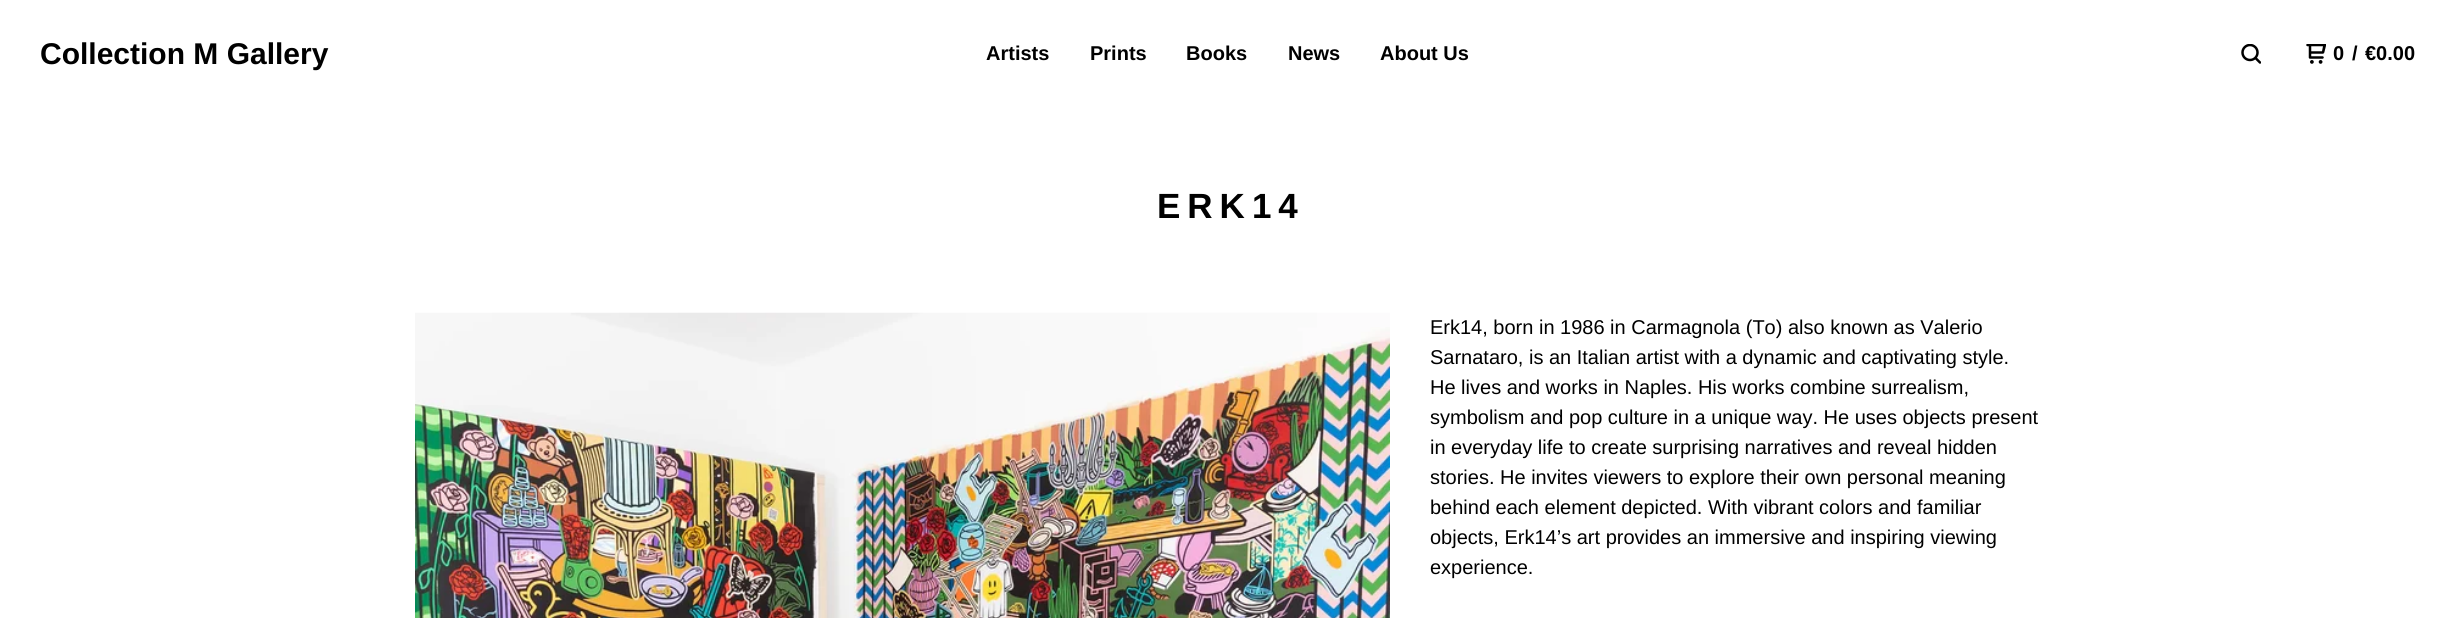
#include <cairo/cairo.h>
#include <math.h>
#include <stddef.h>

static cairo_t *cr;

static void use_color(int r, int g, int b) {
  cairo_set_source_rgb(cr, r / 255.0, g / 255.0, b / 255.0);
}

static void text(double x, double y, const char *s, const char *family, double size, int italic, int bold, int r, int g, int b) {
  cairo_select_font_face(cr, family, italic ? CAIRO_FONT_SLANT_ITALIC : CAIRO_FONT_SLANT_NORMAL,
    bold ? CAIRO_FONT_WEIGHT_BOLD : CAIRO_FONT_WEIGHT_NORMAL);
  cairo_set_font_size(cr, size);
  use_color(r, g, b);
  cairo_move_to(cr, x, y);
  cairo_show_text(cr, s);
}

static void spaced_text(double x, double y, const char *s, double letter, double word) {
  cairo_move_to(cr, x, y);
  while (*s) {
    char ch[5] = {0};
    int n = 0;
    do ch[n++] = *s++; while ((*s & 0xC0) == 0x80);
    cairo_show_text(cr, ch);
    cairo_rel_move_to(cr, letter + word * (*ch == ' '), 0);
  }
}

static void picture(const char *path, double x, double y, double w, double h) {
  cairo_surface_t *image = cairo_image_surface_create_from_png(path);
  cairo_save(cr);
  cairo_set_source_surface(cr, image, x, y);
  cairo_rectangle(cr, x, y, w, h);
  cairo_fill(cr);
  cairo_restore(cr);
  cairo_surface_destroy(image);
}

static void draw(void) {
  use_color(255, 255, 255);
  cairo_paint(cr);
  picture("img_01.png", 2241, 44, 20, 20);
  picture("img_02.png", 2306, 44, 20, 20);
  picture("img_03.png", 415, 312, 975, 306);
  text(40, 64, "Collection M Gallery", "Liberation Sans", 30, 0, 1, 0, 0, 0);
  text(986, 60, "Artists", "Liberation Sans", 20, 0, 1, 0, 0, 0);
  text(1090, 60, "Prints", "Liberation Sans", 20, 0, 1, 0, 0, 0);
  text(1186, 60, "Books", "Liberation Sans", 20, 0, 1, 0, 0, 0);
  text(1288, 60, "News", "Liberation Sans", 20, 0, 1, 0, 0, 0);
  text(1380, 60, "About Us", "Liberation Sans", 20, 0, 1, 0, 0, 0);
  text(2333, 60, "0", "Liberation Sans", 20, 0, 1, 0, 0, 0);
  text(2352, 60, "/", "Liberation Sans", 20, 0, 1, 0, 0, 0);
  text(2365, 60, "€0.00", "Liberation Sans", 20, 0, 1, 0, 0, 0);
  cairo_set_font_size(cr, 35);
  spaced_text(1157, 218, "ERK14", 7, 0);
  text(1430, 334, "Erk14, born in 1986 in Carmagnola (To) also known as Valerio", "Liberation Sans", 20, 0, 0, 0, 0, 0);
  text(1430, 364, "Sarnataro, is an Italian artist with a dynamic and captivating style.", "Liberation Sans", 20, 0, 0, 0, 0, 0);
  text(1430, 394, "He lives and works in Naples. His works combine surrealism,", "Liberation Sans", 20, 0, 0, 0, 0, 0);
  text(1430, 424, "symbolism and pop culture in a unique way. He uses objects present", "Liberation Sans", 20, 0, 0, 0, 0, 0);
  text(1430, 454, "in everyday life to create surprising narratives and reveal hidden", "Liberation Sans", 20, 0, 0, 0, 0, 0);
  text(1430, 484, "stories. He invites viewers to explore their own personal meaning", "Liberation Sans", 20, 0, 0, 0, 0, 0);
  text(1430, 514, "behind each element depicted. With vibrant colors and familiar", "Liberation Sans", 20, 0, 0, 0, 0, 0);
  text(1430, 544, "objects, Erk14’s art provides an immersive and inspiring viewing", "Liberation Sans", 20, 0, 0, 0, 0, 0);
  text(1430, 574, "experience.", "Liberation Sans", 20, 0, 0, 0, 0, 0);
}

int main(void) {
  cairo_surface_t *surface = cairo_image_surface_create(CAIRO_FORMAT_RGB24, 2455, 618);
  cr = cairo_create(surface);
  cairo_font_options_t *options = cairo_font_options_create();
  cairo_font_options_set_hint_metrics(options, CAIRO_HINT_METRICS_OFF);
  cairo_font_options_set_hint_style(options, CAIRO_HINT_STYLE_NONE);
  cairo_set_font_options(cr, options);
  cairo_set_miter_limit(cr, 4);
  draw();
  cairo_surface_write_to_png(surface, "out.png");
  cairo_font_options_destroy(options);
  cairo_destroy(cr);
  cairo_surface_destroy(surface);
  return 0;
}
